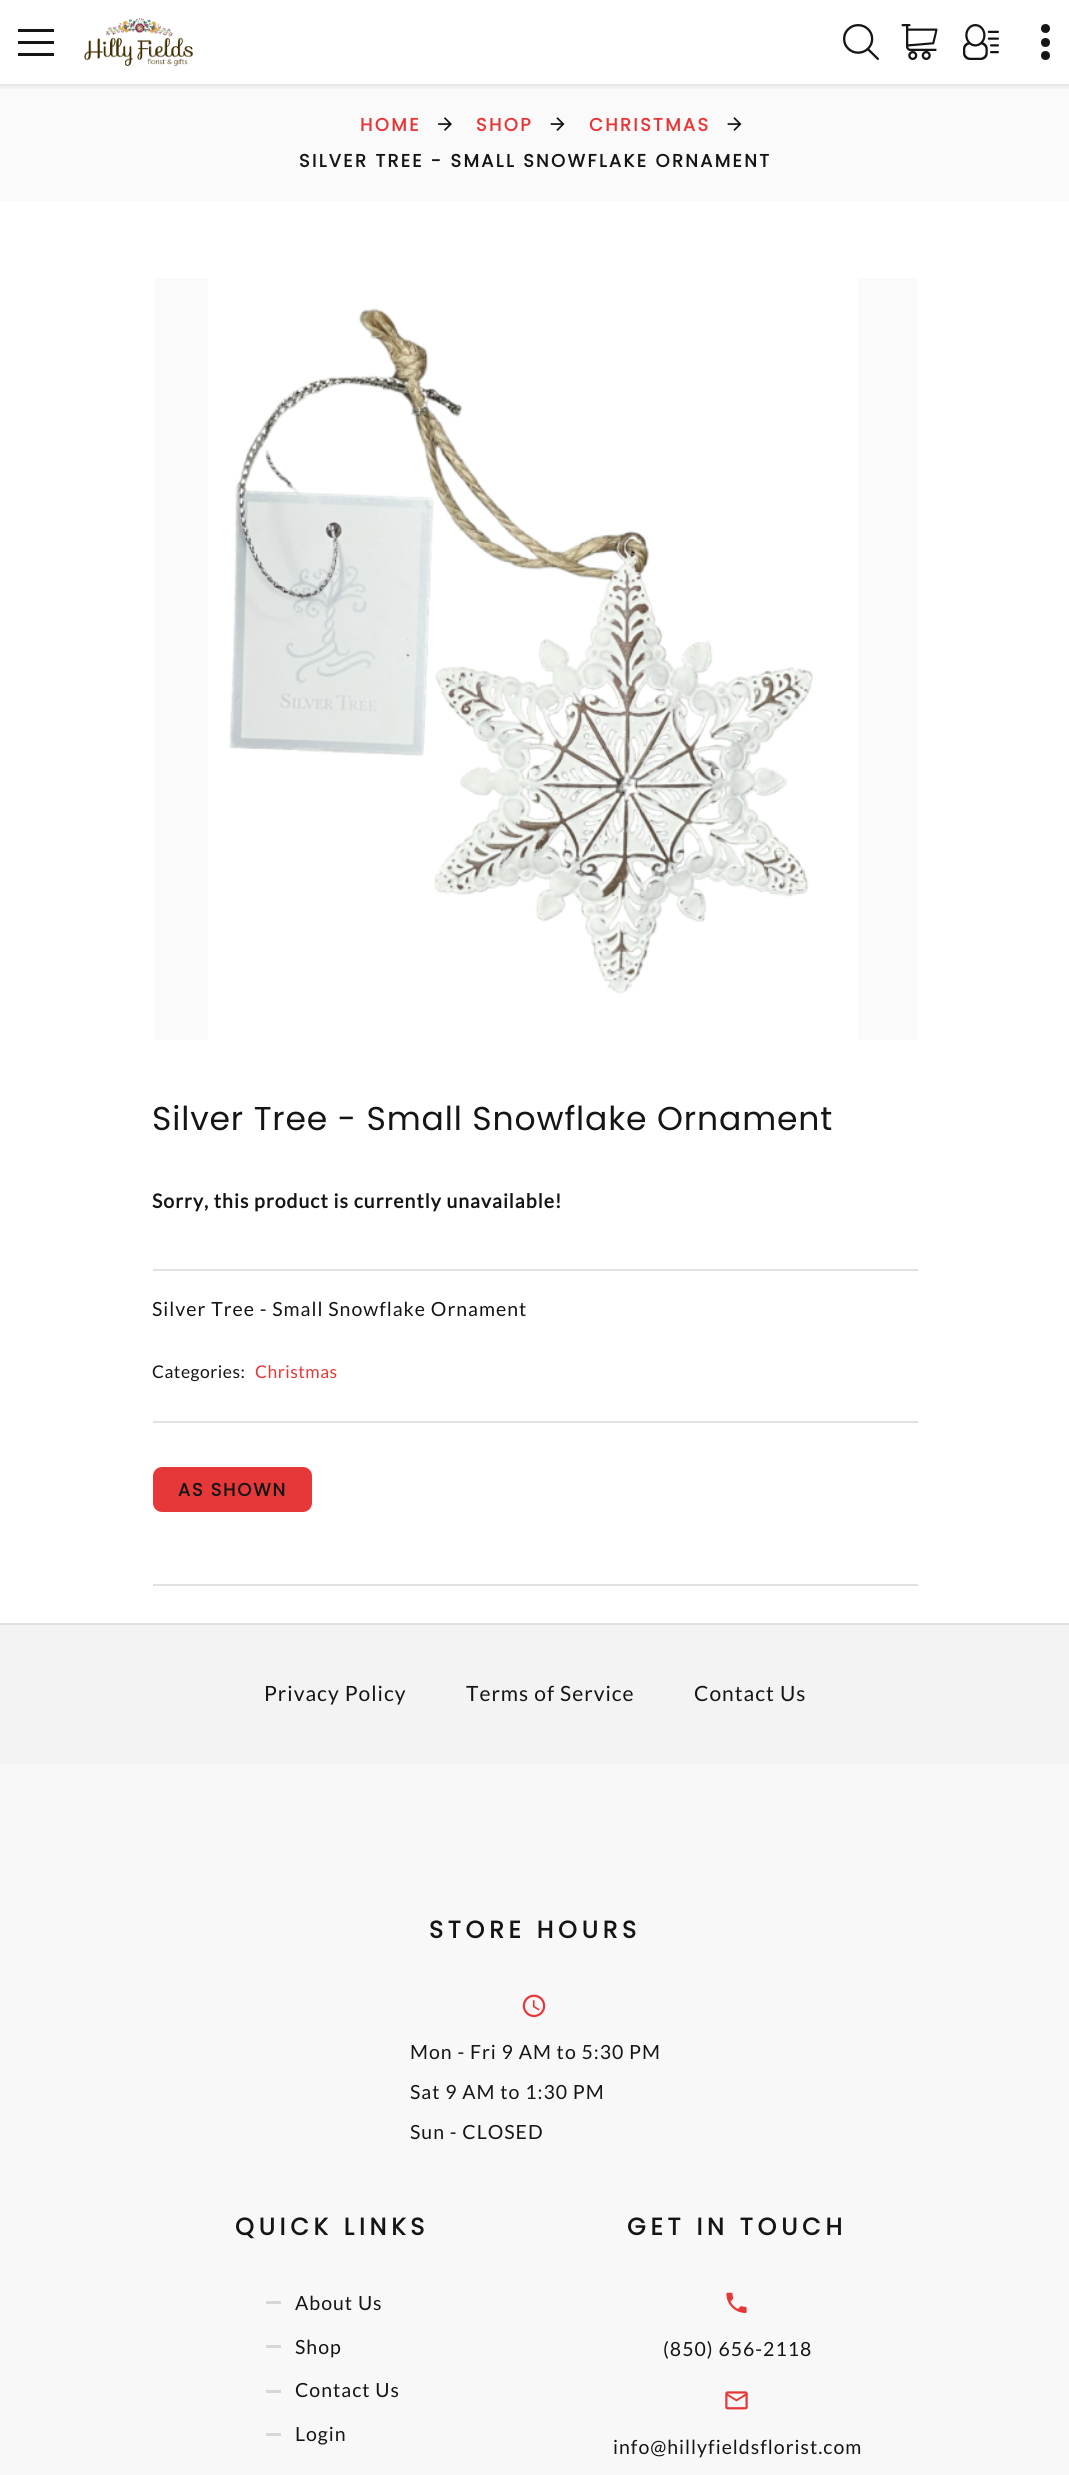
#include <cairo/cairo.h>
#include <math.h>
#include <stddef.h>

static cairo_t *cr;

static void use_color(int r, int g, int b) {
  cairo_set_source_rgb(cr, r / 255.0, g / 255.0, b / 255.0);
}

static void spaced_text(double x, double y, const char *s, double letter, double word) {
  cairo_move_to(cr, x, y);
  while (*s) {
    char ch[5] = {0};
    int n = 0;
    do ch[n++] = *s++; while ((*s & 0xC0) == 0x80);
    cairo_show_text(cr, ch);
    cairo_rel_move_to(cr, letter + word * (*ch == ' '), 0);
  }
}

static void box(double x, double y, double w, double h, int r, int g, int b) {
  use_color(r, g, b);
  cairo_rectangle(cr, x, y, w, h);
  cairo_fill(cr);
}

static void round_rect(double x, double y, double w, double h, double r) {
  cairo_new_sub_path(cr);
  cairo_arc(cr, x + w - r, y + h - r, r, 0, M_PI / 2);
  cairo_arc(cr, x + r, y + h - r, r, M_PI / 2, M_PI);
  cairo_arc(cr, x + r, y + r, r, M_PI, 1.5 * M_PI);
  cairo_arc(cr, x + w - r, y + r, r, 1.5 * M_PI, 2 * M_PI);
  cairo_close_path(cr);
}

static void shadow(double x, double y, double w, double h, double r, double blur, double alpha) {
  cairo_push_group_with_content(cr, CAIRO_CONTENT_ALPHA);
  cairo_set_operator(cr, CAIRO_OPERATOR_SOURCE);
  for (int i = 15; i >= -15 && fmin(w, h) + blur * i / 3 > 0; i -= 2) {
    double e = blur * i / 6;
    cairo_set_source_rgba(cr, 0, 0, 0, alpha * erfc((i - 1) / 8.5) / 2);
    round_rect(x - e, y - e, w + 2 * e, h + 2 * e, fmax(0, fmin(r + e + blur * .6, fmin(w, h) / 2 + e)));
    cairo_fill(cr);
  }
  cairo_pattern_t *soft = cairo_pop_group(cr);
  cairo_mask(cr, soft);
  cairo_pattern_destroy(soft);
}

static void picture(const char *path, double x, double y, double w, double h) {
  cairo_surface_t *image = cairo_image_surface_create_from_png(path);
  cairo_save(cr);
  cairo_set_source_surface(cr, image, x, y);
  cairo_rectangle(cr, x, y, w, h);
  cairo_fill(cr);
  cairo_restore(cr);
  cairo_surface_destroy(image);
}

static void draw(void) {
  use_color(255, 255, 255);
  cairo_paint(cr);
  box(0, 84, 1069, 117, 249, 250, 249);
  cairo_save(cr);
  cairo_rectangle(cr, 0, 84, 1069, 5);
  cairo_clip(cr);
  use_color(1, 3, 4);
  shadow(0, 0, 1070, 84, 0, 4, 0.19);
  cairo_restore(cr);
  box(18, 41, 36, 3, 21, 21, 21);
  box(18, 29, 36, 3, 21, 21, 21);
  box(18, 53, 36, 3, 21, 21, 21);
  picture("img_01.png", 84, 18, 109, 48);
  picture("img_02.png", 843, 24, 36, 36);
  picture("img_03.png", 901, 24, 37, 36);
  picture("img_04.png", 963, 24, 36, 36);
  cairo_arc(cr, 1045.5, 42.5, 4.5, 0, 2 * M_PI);
  cairo_fill(cr);
  cairo_arc(cr, 1045.5, 28.5, 4.5, 0, 2 * M_PI);
  cairo_fill(cr);
  cairo_arc(cr, 1045.5, 55.5, 4.5, 0, 2 * M_PI);
  cairo_fill(cr);
  picture("img_05.png", 438, 117, 14, 14);
  picture("img_06.png", 550, 117, 15, 14);
  picture("img_06.png", 727, 117, 15, 14);
  box(155, 278, 762, 762, 249, 250, 249);
  picture("img_07.png", 208, 278, 650, 762);
  box(153, 1269, 765, 2, 225, 225, 225);
  box(153, 1421, 765, 2, 225, 225, 225);
  use_color(230, 56, 56);
  round_rect(154.5, 1468.5, 156, 42, 7.5);
  cairo_fill_preserve(cr);
  cairo_set_line_width(cr, 3);
  cairo_stroke(cr);
  box(153, 1584, 765, 2, 225, 225, 225);
  box(0, 1764, 1069, 711, 248, 248, 248);
  box(0, 1623, 1069, 2, 225, 225, 225);
  box(0, 1625, 1069, 139, 243, 243, 243);
  picture("img_08.png", 522, 1994, 24, 24);
  box(266, 2301, 15, 3, 215, 215, 215);
  box(266, 2345, 15, 3, 215, 215, 215);
  box(266, 2390, 15, 3, 215, 215, 215);
  box(266, 2433, 15, 3, 215, 215, 215);
  picture("img_09.png", 726, 2292, 21, 21);
  picture("img_10.png", 725, 2391, 23, 19);
  cairo_select_font_face(cr, "Poppins", CAIRO_FONT_SLANT_NORMAL, CAIRO_FONT_WEIGHT_BOLD);
  cairo_set_font_size(cr, 18);
  use_color(230, 56, 56);
  spaced_text(360, 131, "HOME", 2.35, 0);
  spaced_text(476, 131, "SHOP", 2.35, 0);
  spaced_text(589, 131, "CHRISTMAS", 2.35, 0);
  use_color(21, 21, 21);
  spaced_text(299, 167, "SILVER TREE - SMALL SNOWFLAKE ORNAMENT", 2.35, 0);
  cairo_select_font_face(cr, "Poppins", CAIRO_FONT_SLANT_NORMAL, CAIRO_FONT_WEIGHT_NORMAL);
  cairo_set_font_size(cr, 33);
  spaced_text(152, 1130, "Silver Tree - Small Snowflake Ornament", 0.85, 0);
  cairo_select_font_face(cr, "Lato", CAIRO_FONT_SLANT_NORMAL, CAIRO_FONT_WEIGHT_BOLD);
  cairo_set_font_size(cr, 19.5);
  spaced_text(152, 1208, "Sorry, this product is currently unavailable!", 1, 0);
  cairo_select_font_face(cr, "Lato", CAIRO_FONT_SLANT_NORMAL, CAIRO_FONT_WEIGHT_NORMAL);
  spaced_text(152, 1316, "Silver Tree - Small Snowflake Ornament", 1, 0);
  cairo_set_font_size(cr, 17.5);
  spaced_text(152, 1378, "Categories:", 0.5, 0);
  use_color(230, 56, 56);
  spaced_text(255, 1378, "Christmas", 0.5, 0);
  cairo_select_font_face(cr, "Poppins", CAIRO_FONT_SLANT_NORMAL, CAIRO_FONT_WEIGHT_BOLD);
  cairo_set_font_size(cr, 18);
  use_color(21, 21, 21);
  spaced_text(178, 1496, "AS SHOWN", 1.75, 0);
  cairo_select_font_face(cr, "Lato", CAIRO_FONT_SLANT_NORMAL, CAIRO_FONT_WEIGHT_NORMAL);
  cairo_set_font_size(cr, 21);
  spaced_text(264, 1701, "Privacy Policy", 1, 0);
  spaced_text(466, 1701, "Terms of Service", 1, 0);
  spaced_text(694, 1701, "Contact Us", 1, 0);
  cairo_select_font_face(cr, "Poppins", CAIRO_FONT_SLANT_NORMAL, CAIRO_FONT_WEIGHT_BOLD);
  cairo_set_font_size(cr, 24);
  spaced_text(429, 1938, "STORE HOURS", 4.75, 0);
  cairo_select_font_face(cr, "Lato", CAIRO_FONT_SLANT_NORMAL, CAIRO_FONT_WEIGHT_NORMAL);
  cairo_set_font_size(cr, 19.5);
  spaced_text(410, 2059, "Mon - Fri 9 AM to 5:30 PM", 1, 0);
  spaced_text(410, 2099, "Sat 9 AM to 1:30 PM", 1, 0);
  spaced_text(410, 2139, "Sun - CLOSED", 1, 0);
  cairo_select_font_face(cr, "Poppins", CAIRO_FONT_SLANT_NORMAL, CAIRO_FONT_WEIGHT_BOLD);
  cairo_set_font_size(cr, 24);
  spaced_text(235, 2235, "QUICK LINKS", 4.75, 0);
  cairo_select_font_face(cr, "Lato", CAIRO_FONT_SLANT_NORMAL, CAIRO_FONT_WEIGHT_NORMAL);
  cairo_set_font_size(cr, 19.5);
  spaced_text(295, 2310, "About Us", 1, 0);
  spaced_text(295, 2354, "Shop", 1, 0);
  spaced_text(295, 2397, "Contact Us", 1, 0);
  spaced_text(295, 2441, "Login", 1, 0);
  cairo_select_font_face(cr, "Poppins", CAIRO_FONT_SLANT_NORMAL, CAIRO_FONT_WEIGHT_BOLD);
  cairo_set_font_size(cr, 24);
  spaced_text(627, 2235, "GET IN TOUCH", 4.75, 0);
  cairo_select_font_face(cr, "Lato", CAIRO_FONT_SLANT_NORMAL, CAIRO_FONT_WEIGHT_NORMAL);
  cairo_set_font_size(cr, 19.5);
  spaced_text(663, 2356, "(850) 656-2118", 1, 0);
  spaced_text(613, 2454, "info@hillyfieldsflorist.com", 1, 0);
}

int main(void) {
  cairo_surface_t *surface = cairo_image_surface_create(CAIRO_FORMAT_RGB24, 1069, 2475);
  cr = cairo_create(surface);
  cairo_font_options_t *options = cairo_font_options_create();
  cairo_font_options_set_hint_metrics(options, CAIRO_HINT_METRICS_OFF);
  cairo_font_options_set_hint_style(options, CAIRO_HINT_STYLE_NONE);
  cairo_set_font_options(cr, options);
  cairo_set_miter_limit(cr, 4);
  draw();
  cairo_surface_write_to_png(surface, "out.png");
  cairo_font_options_destroy(options);
  cairo_destroy(cr);
  cairo_surface_destroy(surface);
  return 0;
}
